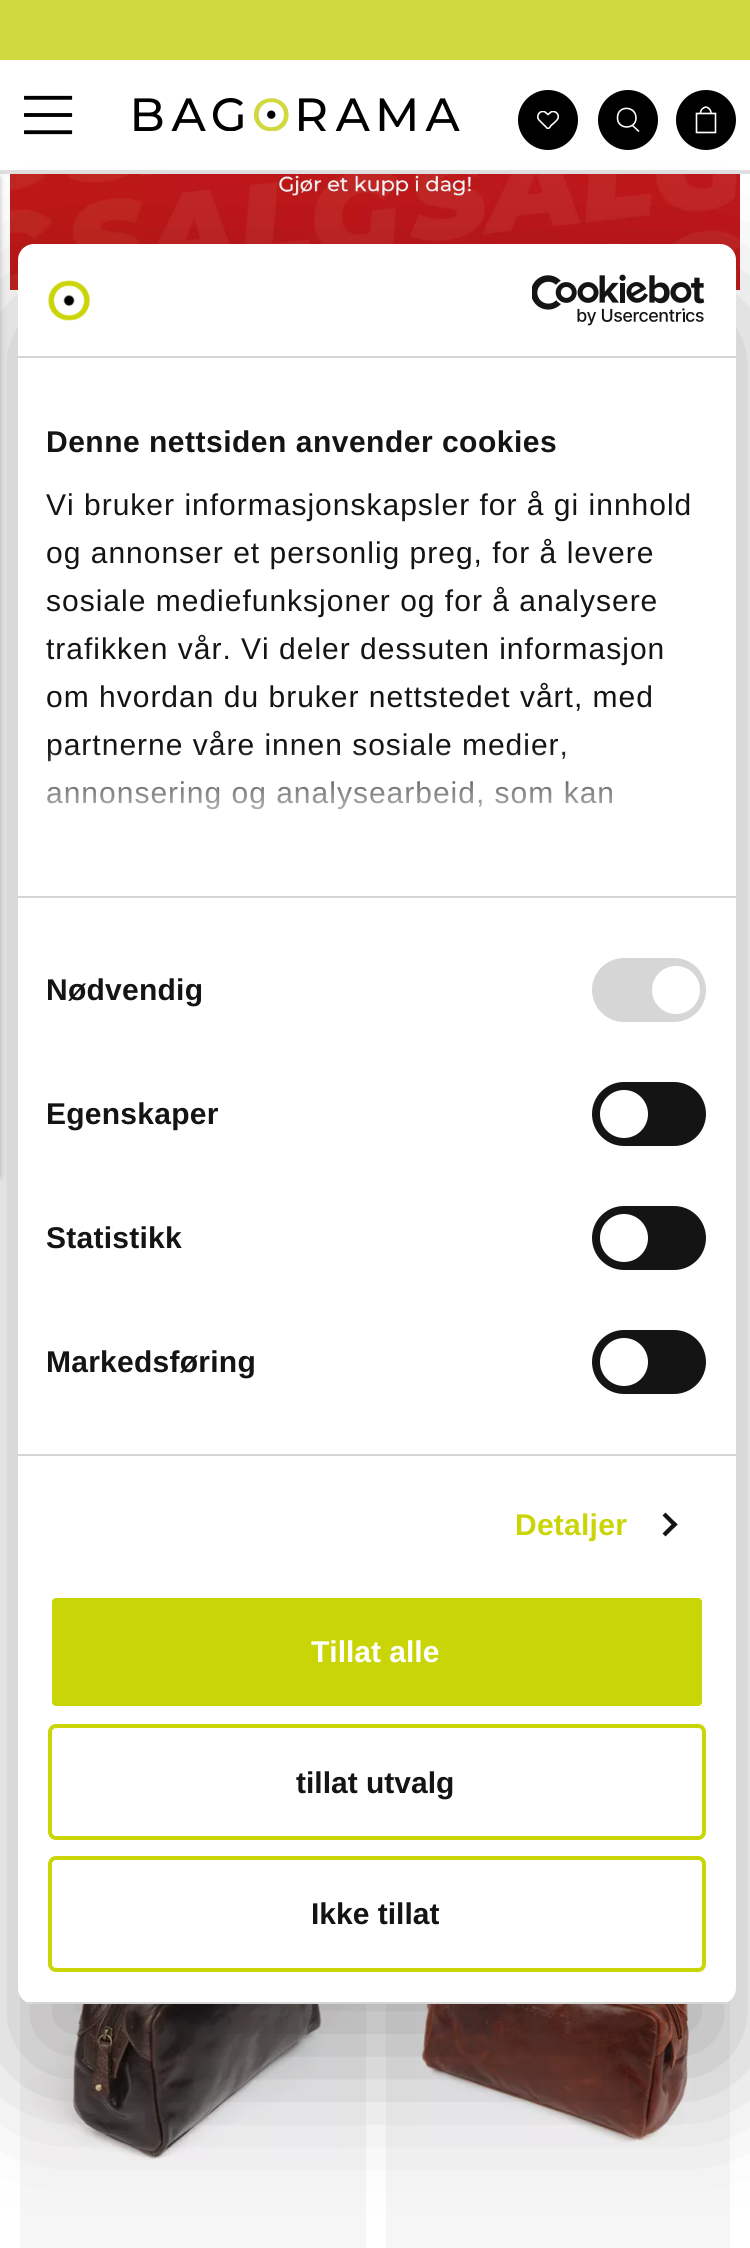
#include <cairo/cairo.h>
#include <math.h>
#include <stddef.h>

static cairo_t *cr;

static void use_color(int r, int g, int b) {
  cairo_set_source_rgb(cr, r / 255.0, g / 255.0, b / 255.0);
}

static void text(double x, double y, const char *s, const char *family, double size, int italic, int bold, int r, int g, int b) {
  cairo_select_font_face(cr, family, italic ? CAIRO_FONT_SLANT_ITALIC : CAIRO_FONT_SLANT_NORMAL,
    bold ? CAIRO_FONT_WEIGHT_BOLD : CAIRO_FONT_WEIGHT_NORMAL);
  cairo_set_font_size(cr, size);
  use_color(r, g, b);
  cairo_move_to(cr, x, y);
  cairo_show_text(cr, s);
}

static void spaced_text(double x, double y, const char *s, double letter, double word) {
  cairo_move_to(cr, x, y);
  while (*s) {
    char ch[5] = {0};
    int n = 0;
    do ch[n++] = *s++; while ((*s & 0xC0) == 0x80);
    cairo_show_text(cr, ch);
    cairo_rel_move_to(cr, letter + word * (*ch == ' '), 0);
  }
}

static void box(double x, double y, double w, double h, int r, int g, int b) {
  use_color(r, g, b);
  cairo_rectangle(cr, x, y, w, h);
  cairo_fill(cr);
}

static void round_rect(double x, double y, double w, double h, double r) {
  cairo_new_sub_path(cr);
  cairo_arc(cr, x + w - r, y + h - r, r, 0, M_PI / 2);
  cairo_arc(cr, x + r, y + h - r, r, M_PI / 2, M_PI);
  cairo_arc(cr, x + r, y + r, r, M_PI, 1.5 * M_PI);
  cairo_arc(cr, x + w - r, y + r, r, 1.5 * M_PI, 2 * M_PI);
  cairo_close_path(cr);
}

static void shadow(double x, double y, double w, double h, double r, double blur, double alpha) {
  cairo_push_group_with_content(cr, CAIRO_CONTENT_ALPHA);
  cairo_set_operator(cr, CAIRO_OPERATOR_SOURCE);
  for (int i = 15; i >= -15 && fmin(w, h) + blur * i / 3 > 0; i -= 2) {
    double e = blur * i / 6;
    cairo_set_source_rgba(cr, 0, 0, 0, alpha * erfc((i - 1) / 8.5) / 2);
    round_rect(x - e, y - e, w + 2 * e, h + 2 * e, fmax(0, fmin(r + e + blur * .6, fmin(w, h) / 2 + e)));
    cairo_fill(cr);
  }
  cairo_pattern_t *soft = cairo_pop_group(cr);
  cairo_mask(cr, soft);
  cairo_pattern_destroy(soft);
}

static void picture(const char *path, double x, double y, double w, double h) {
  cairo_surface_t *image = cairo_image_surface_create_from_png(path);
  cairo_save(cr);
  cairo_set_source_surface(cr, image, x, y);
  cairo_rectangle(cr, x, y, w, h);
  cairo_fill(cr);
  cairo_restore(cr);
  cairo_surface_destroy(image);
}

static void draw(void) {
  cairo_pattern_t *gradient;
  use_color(255, 255, 255);
  cairo_paint(cr);
  box(0, 0, 750, 60, 208, 217, 64);
  box(0, 170, 750, 4, 224, 223, 223);
  picture("img_01.png", 24, 95, 49, 40);
  picture("img_03.png", 10, 174, 730, 116);
  use_color(0, 0, 0);
  shadow(-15, 176, 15, 1000, 0, 5, 0.12);
  shadow(-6, 178, 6, 1000, 0, 2, 0.14);
  picture("img_02.png", 134, 98, 326, 33);
  use_color(0, 0, 0);
  cairo_arc(cr, 548, 120, 30, 0, 2 * M_PI);
  cairo_fill(cr);
  cairo_save(cr);
  cairo_rectangle(cr, 537, 111, 22, 18);
  cairo_clip(cr);
  cairo_new_path(cr);
  cairo_move_to(cr, 539, 120);
  cairo_curve_to(cr, 535.5, 116, 540, 109.5, 545, 112);
  cairo_line_to(cr, 548, 114.5);
  cairo_line_to(cr, 551, 112);
  cairo_curve_to(cr, 555, 110, 559.5, 114, 558, 118.5);
  cairo_curve_to(cr, 557, 120.5, 553, 124, 551, 125.5);
  cairo_curve_to(cr, 551, 126, 548.5, 129.5, 547.5, 128.5);
  cairo_close_path(cr);
  use_color(255, 255, 255);
  cairo_set_line_width(cr, 1.6);
  cairo_stroke(cr);
  cairo_restore(cr);
  cairo_arc(cr, 628, 120, 30, 0, 2 * M_PI);
  cairo_fill(cr);
  cairo_new_path(cr);
  cairo_move_to(cr, 632.5, 125.5);
  cairo_line_to(cr, 639, 131.5);
  cairo_move_to(cr, 636, 118);
  cairo_curve_to(cr, 636, 130, 617, 130, 617.5, 117.5);
  cairo_curve_to(cr, 617.5, 105, 636, 105.5, 636, 118);
  cairo_close_path(cr);
  use_color(255, 255, 255);
  cairo_set_line_width(cr, 1.6);
  cairo_stroke(cr);
  use_color(0, 0, 0);
  cairo_arc(cr, 706, 120, 30, 0, 2 * M_PI);
  cairo_fill(cr);
  cairo_new_path(cr);
  cairo_move_to(cr, 715.5, 113.5);
  cairo_line_to(cr, 696.5, 113.5);
  cairo_line_to(cr, 696.5, 132.5);
  cairo_line_to(cr, 715.5, 132.5);
  cairo_close_path(cr);
  cairo_move_to(cr, 700.5, 113);
  cairo_curve_to(cr, 700.5, 110, 703, 107.5, 706, 107);
  cairo_move_to(cr, 711, 113);
  cairo_curve_to(cr, 711, 110, 708.5, 107.5, 706, 107);
  use_color(255, 255, 255);
  cairo_stroke(cr);
  picture("img_04.png", 20, 1995, 346, 165);
  box(20, 2160, 346, 88, 246, 246, 246);
  box(386, 2000, 344, 248, 246, 246, 246);
  picture("img_05.png", 417, 2004, 276, 139);
  use_color(0, 0, 0);
  shadow(18, 308, 718, 1760, 16, 68, 0.3);
  use_color(255, 255, 255);
  round_rect(18, 244, 718, 1760, 16);
  cairo_fill(cr);
  box(18, 356, 718, 2, 214, 214, 214);
  picture("img_06.png", 48, 280, 43, 41);
  picture("img_07.png", 532, 274, 173, 52);
  box(18, 896, 718, 2, 214, 214, 214);
  box(18, 1454, 718, 2, 214, 214, 214);
  round_rect(592, 958, 114, 64, 32);
  cairo_fill(cr);
  use_color(255, 255, 255);
  cairo_arc(cr, 676, 990, 24, 0, 2 * M_PI);
  cairo_fill(cr);
  use_color(20, 20, 20);
  round_rect(592, 1082, 114, 64, 32);
  cairo_fill(cr);
  use_color(255, 255, 255);
  cairo_arc(cr, 624, 1114, 24, 0, 2 * M_PI);
  cairo_fill(cr);
  use_color(20, 20, 20);
  round_rect(592, 1206, 114, 64, 32);
  cairo_fill(cr);
  use_color(255, 255, 255);
  cairo_arc(cr, 624, 1238, 24, 0, 2 * M_PI);
  cairo_fill(cr);
  use_color(20, 20, 20);
  round_rect(592, 1330, 114, 64, 32);
  cairo_fill(cr);
  use_color(255, 255, 255);
  cairo_arc(cr, 624, 1362, 24, 0, 2 * M_PI);
  cairo_fill(cr);
  use_color(20, 20, 20);
  cairo_new_path(cr);
  cairo_move_to(cr, 665.5, 1512.5);
  cairo_line_to(cr, 677.5, 1524.5);
  cairo_line_to(cr, 674.5, 1527.5);
  cairo_line_to(cr, 662.5, 1515.5);
  cairo_close_path(cr);
  cairo_fill(cr);
  cairo_new_path(cr);
  cairo_move_to(cr, 674.5, 1521.5);
  cairo_line_to(cr, 677.5, 1524.5);
  cairo_line_to(cr, 665.5, 1536.5);
  cairo_line_to(cr, 662.5, 1533.5);
  cairo_close_path(cr);
  cairo_fill(cr);
  cairo_save(cr);
  round_rect(18, 244, 718, 1760, 16);
  cairo_clip(cr);
  box(18, 2002, 718, 2, 214, 214, 214);
  cairo_restore(cr);
  use_color(202, 213, 7);
  round_rect(50, 1596, 654, 112, 6);
  cairo_fill_preserve(cr);
  use_color(255, 255, 255);
  cairo_set_line_width(cr, 4);
  cairo_stroke(cr);
  round_rect(50, 1726, 654, 112, 6);
  use_color(202, 213, 7);
  cairo_stroke(cr);
  round_rect(50, 1858, 654, 112, 6);
  cairo_stroke(cr);
  cairo_select_font_face(cr, "Liberation Sans", CAIRO_FONT_SLANT_NORMAL, CAIRO_FONT_WEIGHT_BOLD);
  cairo_set_font_size(cr, 30);
  use_color(20, 20, 20);
  spaced_text(46, 452, "Denne nettsiden anvender cookies", 0.5, 0);
  cairo_select_font_face(cr, "Liberation Sans", CAIRO_FONT_SLANT_NORMAL, CAIRO_FONT_WEIGHT_NORMAL);
  spaced_text(46, 515, "Vi bruker informasjonskapsler for å gi innhold", 1, 0);
  spaced_text(46, 563, "og annonser et personlig preg, for å levere", 1, 0);
  spaced_text(46, 611, "sosiale mediefunksjoner og for å analysere", 1, 0);
  spaced_text(46, 659, "trafikken vår. Vi deler dessuten informasjon", 1, 0);
  spaced_text(46, 707, "om hvordan du bruker nettstedet vårt, med", 1, 0);
  spaced_text(46, 755, "partnerne våre innen sosiale medier,", 1, 0);
  spaced_text(46, 803, "annonsering og analysearbeid, som kan", 1, 0);
  gradient = cairo_pattern_create_linear(363, 897, 363, 747);
  cairo_pattern_add_color_stop_rgba(gradient, 0, 1, 1, 1, 1);
  cairo_pattern_add_color_stop_rgba(gradient, 0.5, 1, 1, 1, 0.8);
  cairo_pattern_add_color_stop_rgba(gradient, 1, 1, 1, 1, 0);
  cairo_set_source(cr, gradient);
  cairo_pattern_destroy(gradient);
  cairo_rectangle(cr, 47, 749, 566, 61);
  cairo_fill(cr);
  cairo_select_font_face(cr, "Liberation Sans", CAIRO_FONT_SLANT_NORMAL, CAIRO_FONT_WEIGHT_BOLD);
  use_color(20, 20, 20);
  spaced_text(46, 1000, "Nødvendig", 0.25, 0);
  spaced_text(46, 1124, "Egenskaper", 0.25, 0);
  spaced_text(46, 1248, "Statistikk", 0.25, 0);
  spaced_text(46, 1372, "Markedsføring", 0.25, 0);
  use_color(202, 213, 7);
  spaced_text(515, 1535, "Detaljer", 0.25, 0);
  text(311, 1662, "Tillat alle", "Liberation Sans", 30, 0, 1, 255, 255, 255);
  text(296, 1793, "tillat utvalg", "Liberation Sans", 30, 0, 1, 20, 20, 20);
  text(311, 1924, "Ikke tillat", "Liberation Sans", 30, 0, 1, 20, 20, 20);
}

int main(void) {
  cairo_surface_t *surface = cairo_image_surface_create(CAIRO_FORMAT_RGB24, 750, 2248);
  cr = cairo_create(surface);
  cairo_font_options_t *options = cairo_font_options_create();
  cairo_font_options_set_hint_metrics(options, CAIRO_HINT_METRICS_OFF);
  cairo_font_options_set_hint_style(options, CAIRO_HINT_STYLE_NONE);
  cairo_set_font_options(cr, options);
  cairo_set_miter_limit(cr, 4);
  draw();
  cairo_surface_write_to_png(surface, "out.png");
  cairo_font_options_destroy(options);
  cairo_destroy(cr);
  cairo_surface_destroy(surface);
  return 0;
}
